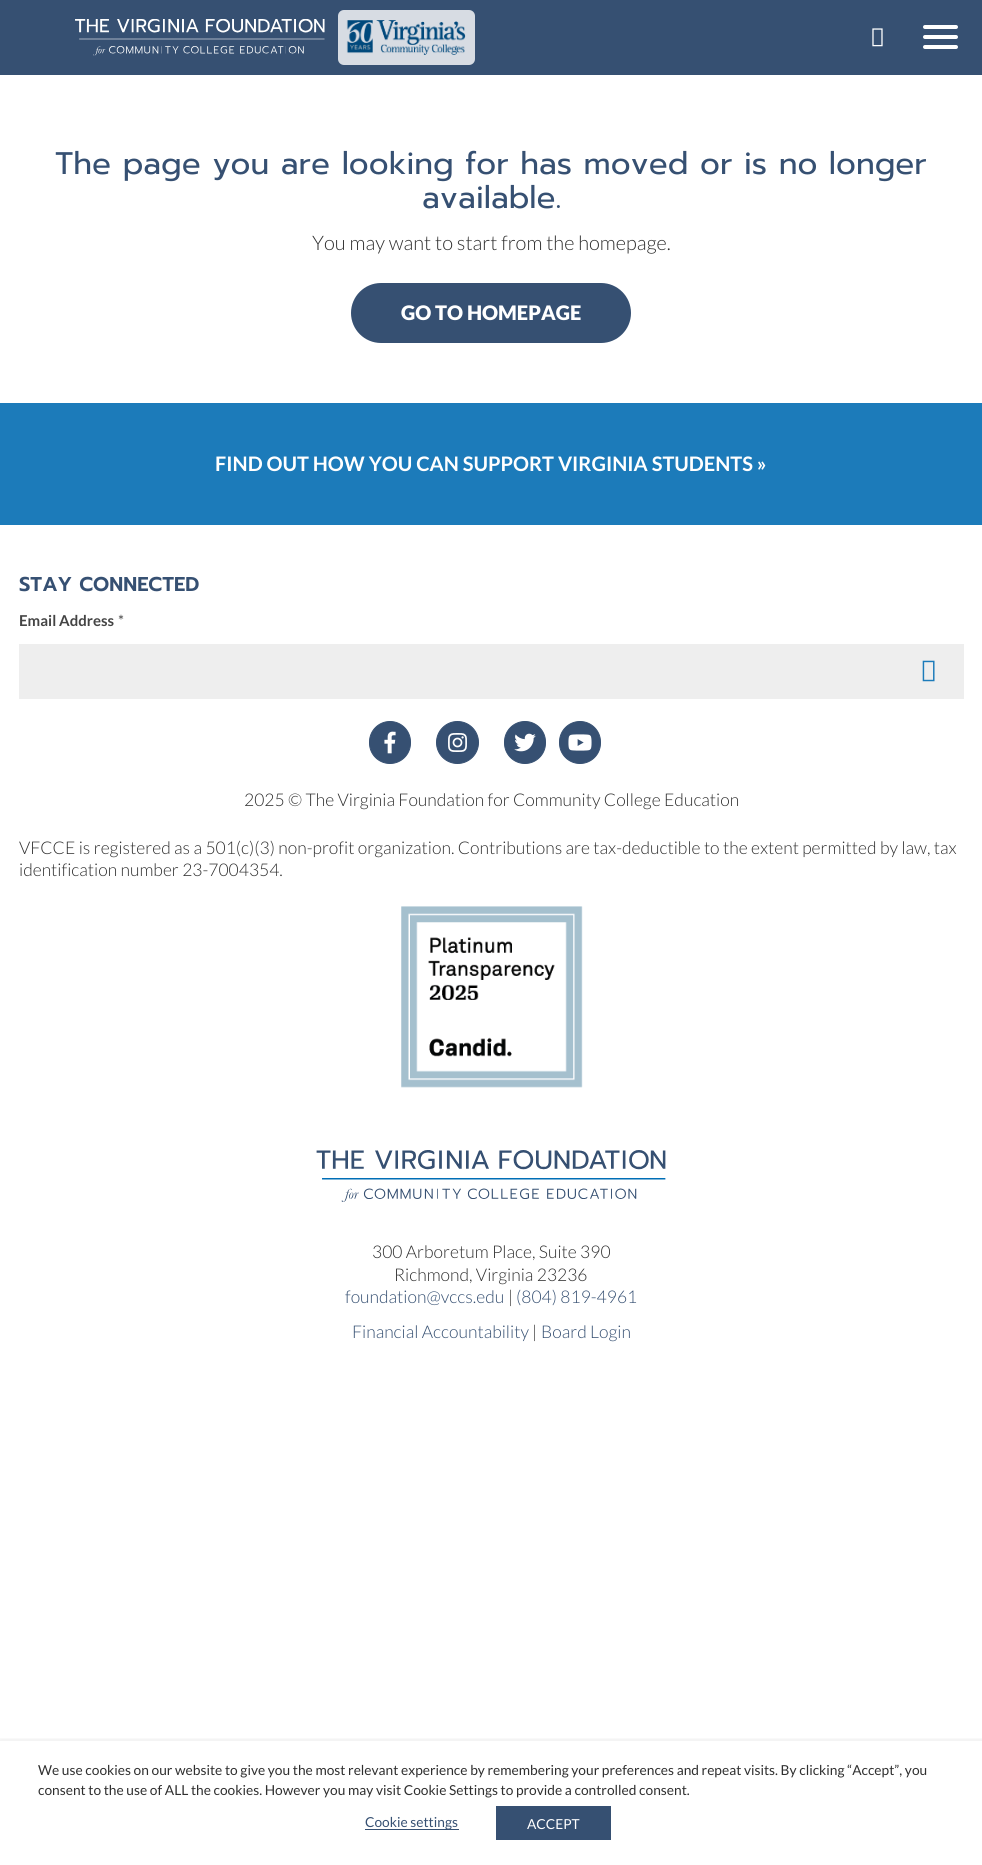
#include <cairo/cairo.h>
#include <math.h>
#include <stddef.h>

static cairo_t *cr;

static void use_color(int r, int g, int b) {
  cairo_set_source_rgb(cr, r / 255.0, g / 255.0, b / 255.0);
}

static void text(double x, double y, const char *s, const char *family, double size, int italic, int bold, int r, int g, int b) {
  cairo_select_font_face(cr, family, italic ? CAIRO_FONT_SLANT_ITALIC : CAIRO_FONT_SLANT_NORMAL,
    bold ? CAIRO_FONT_WEIGHT_BOLD : CAIRO_FONT_WEIGHT_NORMAL);
  cairo_set_font_size(cr, size);
  use_color(r, g, b);
  cairo_move_to(cr, x, y);
  cairo_show_text(cr, s);
}

static void box(double x, double y, double w, double h, int r, int g, int b) {
  use_color(r, g, b);
  cairo_rectangle(cr, x, y, w, h);
  cairo_fill(cr);
}

static void round_rect(double x, double y, double w, double h, double r) {
  cairo_new_sub_path(cr);
  cairo_arc(cr, x + w - r, y + h - r, r, 0, M_PI / 2);
  cairo_arc(cr, x + r, y + h - r, r, M_PI / 2, M_PI);
  cairo_arc(cr, x + r, y + r, r, M_PI, 1.5 * M_PI);
  cairo_arc(cr, x + w - r, y + r, r, 1.5 * M_PI, 2 * M_PI);
  cairo_close_path(cr);
}

static void shadow(double x, double y, double w, double h, double r, double blur, double alpha) {
  cairo_push_group_with_content(cr, CAIRO_CONTENT_ALPHA);
  cairo_set_operator(cr, CAIRO_OPERATOR_SOURCE);
  for (int i = 15; i >= -15 && fmin(w, h) + blur * i / 3 > 0; i -= 2) {
    double e = blur * i / 6;
    cairo_set_source_rgba(cr, 0, 0, 0, alpha * erfc((i - 1) / 8.5) / 2);
    round_rect(x - e, y - e, w + 2 * e, h + 2 * e, fmax(0, fmin(r + e + blur * .6, fmin(w, h) / 2 + e)));
    cairo_fill(cr);
  }
  cairo_pattern_t *soft = cairo_pop_group(cr);
  cairo_mask(cr, soft);
  cairo_pattern_destroy(soft);
}

static void picture(const char *path, double x, double y, double w, double h) {
  cairo_surface_t *image = cairo_image_surface_create_from_png(path);
  cairo_save(cr);
  cairo_set_source_surface(cr, image, x, y);
  cairo_rectangle(cr, x, y, w, h);
  cairo_fill(cr);
  cairo_restore(cr);
  cairo_surface_destroy(image);
}

static void draw(void) {
  use_color(255, 255, 255);
  cairo_paint(cr);
  box(0, 0, 982, 75, 54, 80, 114);
  picture("img_01.png", 75, 19, 250, 37);
  use_color(215, 220, 227);
  round_rect(338, 10, 137, 55, 6);
  cairo_fill(cr);
  picture("img_02.png", 346, 20, 120, 35);
  picture("img_03.png", 872, 28, 11, 19);
  use_color(255, 255, 255);
  round_rect(923, 25, 35, 4, 2);
  cairo_fill(cr);
  round_rect(923, 35, 35, 4, 2);
  cairo_fill(cr);
  round_rect(923, 45, 35, 4, 2);
  cairo_fill(cr);
  use_color(54, 80, 114);
  round_rect(351, 283, 280, 60, 30);
  cairo_fill(cr);
  box(0, 403, 982, 122, 28, 123, 186);
  box(19, 644, 945, 55, 238, 238, 238);
  picture("img_04.png", 922, 660, 13, 22);
  use_color(54, 80, 114);
  round_rect(369.5, 721.5, 41, 42, 20.5);
  cairo_fill_preserve(cr);
  cairo_set_line_width(cr, 1);
  cairo_stroke(cr);
  picture("img_05.png", 384, 731, 12, 23);
  cairo_arc(cr, 457.5, 742.5, 21, 0, 2 * M_PI);
  cairo_fill_preserve(cr);
  cairo_stroke(cr);
  picture("img_06.png", 448, 733, 19, 19);
  round_rect(504.5, 721.5, 41, 42, 20.5);
  cairo_fill_preserve(cr);
  cairo_stroke(cr);
  picture("img_07.png", 514, 733, 22, 19);
  round_rect(559.5, 721.5, 41, 42, 20.5);
  cairo_fill_preserve(cr);
  cairo_stroke(cr);
  picture("img_08.png", 568, 734, 24, 17);
  picture("img_09.png", 401, 906, 182, 182);
  picture("img_10.png", 316, 1150, 350, 52);
  cairo_save(cr);
  cairo_rectangle(cr, 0, 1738, 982, 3);
  cairo_clip(cr);
  use_color(0, 0, 0);
  shadow(0, 1748, 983, 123, 0, 6, 0.5);
  cairo_restore(cr);
  cairo_set_source_rgba(cr, 1, 1, 1, 0.97);
  cairo_rectangle(cr, 2, 1741, 979, 1);
  cairo_fill(cr);
  box(365, 1829, 94, 1, 54, 80, 114);
  box(496, 1806, 115, 34, 54, 80, 114);
  text(55, 174, "The page you are looking for has moved or is no longer", "Prompt", 31.25, 0, 0, 54, 80, 114);
  text(422, 208, "available.", "Prompt", 31.25, 0, 0, 54, 80, 114);
  text(312, 250, "You may want to start from the homepage.", "Lato Light", 20, 0, 0, 47, 47, 47);
  text(401, 320, "GO TO HOMEPAGE", "Lato Black", 20, 0, 0, 255, 255, 255);
  text(215, 471, "FIND OUT HOW YOU CAN SUPPORT VIRGINIA STUDENTS »", "Lato", 20, 0, 1, 255, 255, 255);
  text(19, 591, "STAY CONNECTED", "Prompt SemiBold", 20, 0, 0, 54, 80, 114);
  text(19, 626, "Email Address", "Lato", 15, 0, 1, 68, 68, 68);
  text(118, 626, "*", "Lato", 15, 0, 0, 68, 68, 68);
  text(244, 806, "2025 © The Virginia Foundation for Community College Education", "Lato Light", 17.5, 0, 0, 47, 47, 47);
  text(19, 854, "VFCCE is registered as a 501(c)(3) non-profit organization. Contributions are tax-deductible to the extent permitted by law, tax", "Lato Light", 17.5, 0, 0, 47, 47, 47);
  text(19, 876, "identification number 23-7004354.", "Lato Light", 17.5, 0, 0, 47, 47, 47);
  text(372, 1258, "300 Arboretum Place, Suite 390", "Lato Light", 17.5, 0, 0, 47, 47, 47);
  text(394, 1281, "Richmond, Virginia 23236", "Lato Light", 17.5, 0, 0, 47, 47, 47);
  text(345, 1303, "foundation@vccs.edu", "Lato Light", 17.5, 0, 0, 54, 80, 114);
  text(508, 1303, "|", "Lato Light", 17.5, 0, 0, 47, 47, 47);
  text(516, 1303, "(804) 819-4961", "Lato Light", 17.5, 0, 0, 54, 80, 114);
  text(352, 1338, "Financial Accountability", "Lato Light", 17.5, 0, 0, 54, 80, 114);
  text(532, 1338, "|", "Lato Light", 17.5, 0, 0, 47, 47, 47);
  text(541, 1338, "Board Login", "Lato Light", 17.5, 0, 0, 54, 80, 114);
  text(38, 1775, "We use cookies on our website to give you the most relevant experience by remembering your preferences and repeat visits. By clicking “Accept”, you", "Lato", 13.75, 0, 0, 47, 47, 47);
  text(38, 1795, "consent to the use of ALL the cookies. However you may visit Cookie Settings to provide a controlled consent.", "Lato", 13.75, 0, 0, 47, 47, 47);
  text(365, 1827, "Cookie settings", "Lato", 13.75, 0, 0, 54, 80, 114);
  text(527, 1829, "ACCEPT", "Lato", 13.75, 0, 0, 255, 255, 255);
}

int main(void) {
  cairo_surface_t *surface = cairo_image_surface_create(CAIRO_FORMAT_RGB24, 982, 1865);
  cr = cairo_create(surface);
  cairo_font_options_t *options = cairo_font_options_create();
  cairo_font_options_set_hint_metrics(options, CAIRO_HINT_METRICS_OFF);
  cairo_font_options_set_hint_style(options, CAIRO_HINT_STYLE_NONE);
  cairo_set_font_options(cr, options);
  cairo_set_miter_limit(cr, 4);
  draw();
  cairo_surface_write_to_png(surface, "out.png");
  cairo_font_options_destroy(options);
  cairo_destroy(cr);
  cairo_surface_destroy(surface);
  return 0;
}
